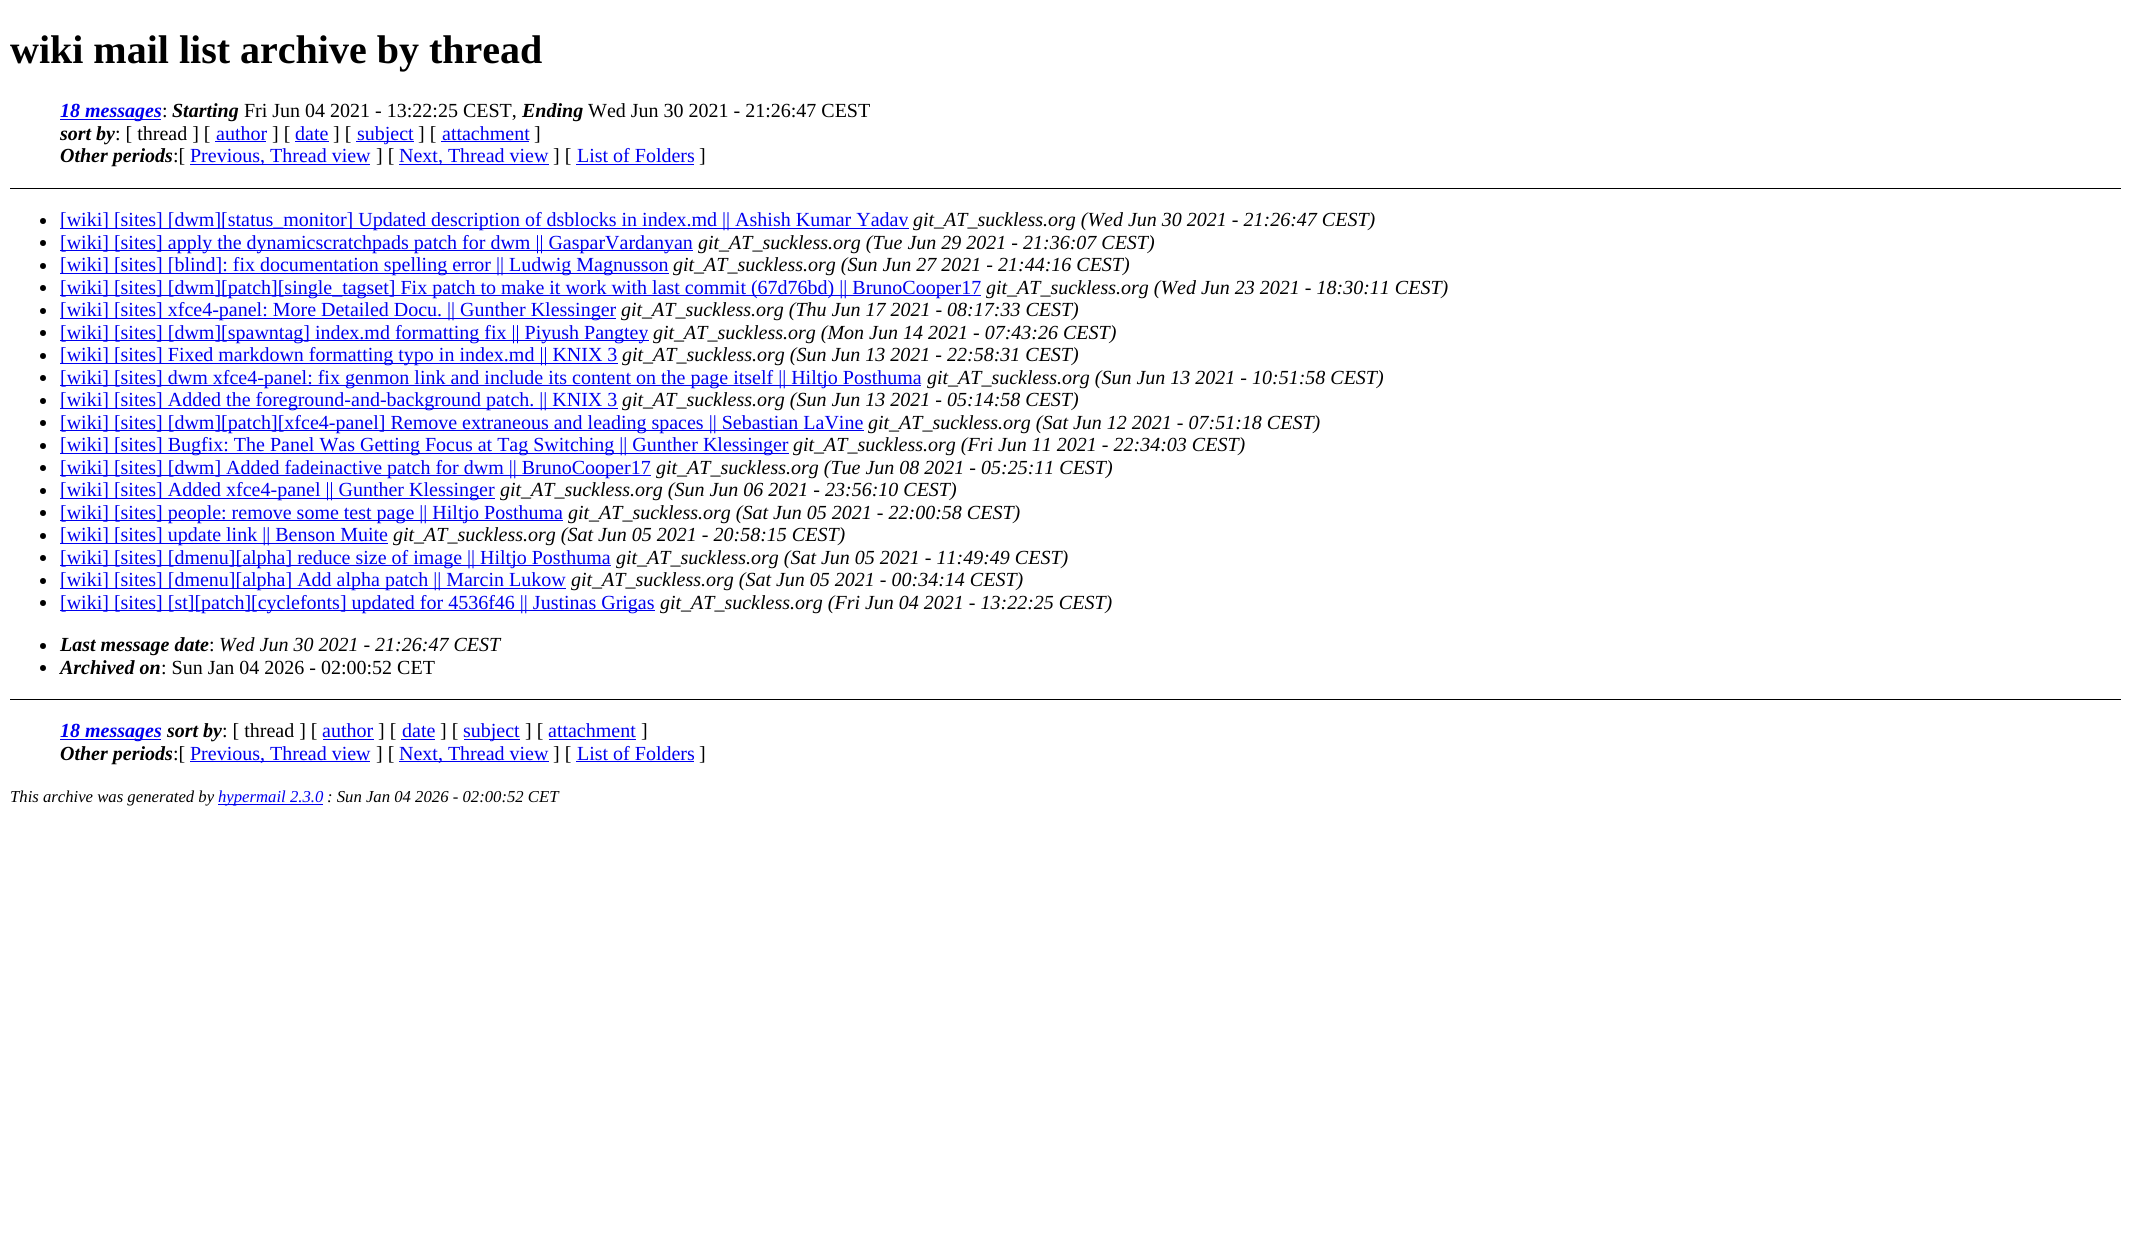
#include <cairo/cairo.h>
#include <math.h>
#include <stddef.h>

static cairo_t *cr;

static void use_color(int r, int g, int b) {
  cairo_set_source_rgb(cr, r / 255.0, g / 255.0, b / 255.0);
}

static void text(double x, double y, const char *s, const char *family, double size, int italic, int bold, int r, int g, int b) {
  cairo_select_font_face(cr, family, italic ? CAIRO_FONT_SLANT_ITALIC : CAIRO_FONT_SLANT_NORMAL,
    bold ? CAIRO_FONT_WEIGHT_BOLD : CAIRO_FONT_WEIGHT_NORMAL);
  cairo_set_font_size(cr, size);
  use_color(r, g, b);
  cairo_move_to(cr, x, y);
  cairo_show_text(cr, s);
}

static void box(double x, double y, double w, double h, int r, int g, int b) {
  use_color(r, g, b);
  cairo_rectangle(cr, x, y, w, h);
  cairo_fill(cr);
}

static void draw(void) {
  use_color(255, 255, 255);
  cairo_paint(cr);
  box(10, 188, 2111, 1, 0, 0, 0);
  box(60, 119, 101, 1, 0, 0, 238);
  box(215, 141, 51, 1, 0, 0, 238);
  box(295, 141, 34, 1, 0, 0, 238);
  box(356, 141, 58, 1, 0, 0, 238);
  box(441, 141, 88, 1, 0, 0, 238);
  box(190, 164, 180, 1, 0, 0, 238);
  box(399, 164, 150, 1, 0, 0, 238);
  box(576, 164, 118, 1, 0, 0, 238);
  use_color(0, 0, 0);
  cairo_arc(cr, 43, 221, 3, 0, 2 * M_PI);
  cairo_fill(cr);
  box(60, 228, 849, 1, 0, 0, 238);
  use_color(0, 0, 0);
  cairo_arc(cr, 43, 243, 3, 0, 2 * M_PI);
  cairo_fill(cr);
  box(60, 250, 633, 1, 0, 0, 238);
  use_color(0, 0, 0);
  cairo_arc(cr, 43, 266, 3, 0, 2 * M_PI);
  cairo_fill(cr);
  box(60, 273, 609, 1, 0, 0, 238);
  use_color(0, 0, 0);
  cairo_arc(cr, 43, 288, 3, 0, 2 * M_PI);
  cairo_fill(cr);
  box(60, 295, 921, 1, 0, 0, 238);
  use_color(0, 0, 0);
  cairo_arc(cr, 43, 311, 3, 0, 2 * M_PI);
  cairo_fill(cr);
  box(60, 318, 556, 1, 0, 0, 238);
  use_color(0, 0, 0);
  cairo_arc(cr, 43, 333, 3, 0, 2 * M_PI);
  cairo_fill(cr);
  box(60, 340, 589, 1, 0, 0, 238);
  use_color(0, 0, 0);
  cairo_arc(cr, 43, 356, 3, 0, 2 * M_PI);
  cairo_fill(cr);
  box(60, 363, 558, 1, 0, 0, 238);
  use_color(0, 0, 0);
  cairo_arc(cr, 43, 378, 3, 0, 2 * M_PI);
  cairo_fill(cr);
  box(60, 385, 861, 1, 0, 0, 238);
  use_color(0, 0, 0);
  cairo_arc(cr, 43, 401, 3, 0, 2 * M_PI);
  cairo_fill(cr);
  box(60, 408, 558, 1, 0, 0, 238);
  use_color(0, 0, 0);
  cairo_arc(cr, 43, 423, 3, 0, 2 * M_PI);
  cairo_fill(cr);
  box(60, 430, 804, 1, 0, 0, 238);
  use_color(0, 0, 0);
  cairo_arc(cr, 43, 446, 3, 0, 2 * M_PI);
  cairo_fill(cr);
  box(60, 453, 729, 1, 0, 0, 238);
  use_color(0, 0, 0);
  cairo_arc(cr, 43, 468, 3, 0, 2 * M_PI);
  cairo_fill(cr);
  box(60, 475, 591, 1, 0, 0, 238);
  use_color(0, 0, 0);
  cairo_arc(cr, 43, 491, 3, 0, 2 * M_PI);
  cairo_fill(cr);
  box(60, 498, 435, 1, 0, 0, 238);
  use_color(0, 0, 0);
  cairo_arc(cr, 43, 513, 3, 0, 2 * M_PI);
  cairo_fill(cr);
  box(60, 520, 503, 1, 0, 0, 238);
  use_color(0, 0, 0);
  cairo_arc(cr, 43, 536, 3, 0, 2 * M_PI);
  cairo_fill(cr);
  box(60, 543, 328, 1, 0, 0, 238);
  use_color(0, 0, 0);
  cairo_arc(cr, 43, 558, 3, 0, 2 * M_PI);
  cairo_fill(cr);
  box(60, 565, 551, 1, 0, 0, 238);
  use_color(0, 0, 0);
  cairo_arc(cr, 43, 581, 3, 0, 2 * M_PI);
  cairo_fill(cr);
  box(60, 588, 506, 1, 0, 0, 238);
  use_color(0, 0, 0);
  cairo_arc(cr, 43, 603, 3, 0, 2 * M_PI);
  cairo_fill(cr);
  box(60, 610, 595, 1, 0, 0, 238);
  use_color(0, 0, 0);
  cairo_arc(cr, 43, 646, 3, 0, 2 * M_PI);
  cairo_fill(cr);
  cairo_arc(cr, 43, 668, 3, 0, 2 * M_PI);
  cairo_fill(cr);
  box(10, 699, 2111, 1, 0, 0, 0);
  box(60, 739, 101, 1, 0, 0, 238);
  box(323, 739, 51, 1, 0, 0, 238);
  box(401, 739, 34, 1, 0, 0, 238);
  box(464, 739, 56, 1, 0, 0, 238);
  box(549, 739, 87, 1, 0, 0, 238);
  box(190, 761, 180, 1, 0, 0, 238);
  box(399, 761, 150, 1, 0, 0, 238);
  box(576, 761, 118, 1, 0, 0, 238);
  box(218, 804, 105, 1, 0, 0, 238);
  text(10, 63, "wiki mail list archive by thread", "Liberation Serif", 40, 0, 1, 0, 0, 0);
  text(60, 117, "18 messages", "Liberation Serif", 20, 1, 1, 0, 0, 238);
  text(162, 117, ":", "Liberation Serif", 20, 0, 0, 0, 0, 0);
  text(172, 117, "Starting", "Liberation Serif", 20, 1, 1, 0, 0, 0);
  text(244, 117, "Fri Jun 04 2021 - 13:22:25 CEST,", "Liberation Serif", 20, 0, 0, 0, 0, 0);
  text(522, 117, "Ending", "Liberation Serif", 20, 1, 1, 0, 0, 0);
  text(588, 117, "Wed Jun 30 2021 - 21:26:47 CEST", "Liberation Serif", 20, 0, 0, 0, 0, 0);
  text(60, 140, "sort by", "Liberation Serif", 20, 1, 1, 0, 0, 0);
  text(115, 140, ": [ thread ] [", "Liberation Serif", 20, 0, 0, 0, 0, 0);
  text(216, 140, "author", "Liberation Serif", 20, 0, 0, 0, 0, 238);
  text(272, 140, "] [", "Liberation Serif", 20, 0, 0, 0, 0, 0);
  text(295, 140, "date", "Liberation Serif", 20, 0, 0, 0, 0, 238);
  text(333, 140, "] [", "Liberation Serif", 20, 0, 0, 0, 0, 0);
  text(357, 140, "subject", "Liberation Serif", 20, 0, 0, 0, 0, 238);
  text(418, 140, "] [", "Liberation Serif", 20, 0, 0, 0, 0, 0);
  text(442, 140, "attachment", "Liberation Serif", 20, 0, 0, 0, 0, 238);
  text(534, 140, "]", "Liberation Serif", 20, 0, 0, 0, 0, 0);
  text(60, 162, "Other periods", "Liberation Serif", 20, 1, 1, 0, 0, 0);
  text(173, 162, ":[", "Liberation Serif", 20, 0, 0, 0, 0, 0);
  text(190, 162, "Previous, Thread view", "Liberation Serif", 20, 0, 0, 0, 0, 238);
  text(376, 162, "] [", "Liberation Serif", 20, 0, 0, 0, 0, 0);
  text(399, 162, "Next, Thread view", "Liberation Serif", 20, 0, 0, 0, 0, 238);
  text(553, 162, "] [", "Liberation Serif", 20, 0, 0, 0, 0, 0);
  text(577, 162, "List of Folders", "Liberation Serif", 20, 0, 0, 0, 0, 238);
  text(699, 162, "]", "Liberation Serif", 20, 0, 0, 0, 0, 0);
  text(60, 226, "[wiki] [sites] [dwm][status_monitor] Updated description of dsblocks in index.md || Ashish Kumar Yadav", "Liberation Serif", 20, 0, 0, 0, 0, 238);
  text(913, 226, "git_AT_suckless.org (Wed Jun 30 2021 - 21:26:47 CEST)", "Liberation Serif", 20, 1, 0, 0, 0, 0);
  text(60, 249, "[wiki] [sites] apply the dynamicscratchpads patch for dwm || GasparVardanyan", "Liberation Serif", 20, 0, 0, 0, 0, 238);
  text(698, 249, "git_AT_suckless.org (Tue Jun 29 2021 - 21:36:07 CEST)", "Liberation Serif", 20, 1, 0, 0, 0, 0);
  text(60, 271, "[wiki] [sites] [blind]: fix documentation spelling error || Ludwig Magnusson", "Liberation Serif", 20, 0, 0, 0, 0, 238);
  text(673, 271, "git_AT_suckless.org (Sun Jun 27 2021 - 21:44:16 CEST)", "Liberation Serif", 20, 1, 0, 0, 0, 0);
  text(60, 294, "[wiki] [sites] [dwm][patch][single_tagset] Fix patch to make it work with last commit (67d76bd) || BrunoCooper17", "Liberation Serif", 20, 0, 0, 0, 0, 238);
  text(986, 294, "git_AT_suckless.org (Wed Jun 23 2021 - 18:30:11 CEST)", "Liberation Serif", 20, 1, 0, 0, 0, 0);
  text(60, 316, "[wiki] [sites] xfce4-panel: More Detailed Docu. || Gunther Klessinger", "Liberation Serif", 20, 0, 0, 0, 0, 238);
  text(621, 316, "git_AT_suckless.org (Thu Jun 17 2021 - 08:17:33 CEST)", "Liberation Serif", 20, 1, 0, 0, 0, 0);
  text(60, 339, "[wiki] [sites] [dwm][spawntag] index.md formatting fix || Piyush Pangtey", "Liberation Serif", 20, 0, 0, 0, 0, 238);
  text(653, 339, "git_AT_suckless.org (Mon Jun 14 2021 - 07:43:26 CEST)", "Liberation Serif", 20, 1, 0, 0, 0, 0);
  text(60, 361, "[wiki] [sites] Fixed markdown formatting typo in index.md || KNIX 3", "Liberation Serif", 20, 0, 0, 0, 0, 238);
  text(622, 361, "git_AT_suckless.org (Sun Jun 13 2021 - 22:58:31 CEST)", "Liberation Serif", 20, 1, 0, 0, 0, 0);
  text(60, 384, "[wiki] [sites] dwm xfce4-panel: fix genmon link and include its content on the page itself || Hiltjo Posthuma", "Liberation Serif", 20, 0, 0, 0, 0, 238);
  text(927, 384, "git_AT_suckless.org (Sun Jun 13 2021 - 10:51:58 CEST)", "Liberation Serif", 20, 1, 0, 0, 0, 0);
  text(60, 406, "[wiki] [sites] Added the foreground-and-background patch. || KNIX 3", "Liberation Serif", 20, 0, 0, 0, 0, 238);
  text(622, 406, "git_AT_suckless.org (Sun Jun 13 2021 - 05:14:58 CEST)", "Liberation Serif", 20, 1, 0, 0, 0, 0);
  text(60, 429, "[wiki] [sites] [dwm][patch][xfce4-panel] Remove extraneous and leading spaces || Sebastian LaVine", "Liberation Serif", 20, 0, 0, 0, 0, 238);
  text(868, 429, "git_AT_suckless.org (Sat Jun 12 2021 - 07:51:18 CEST)", "Liberation Serif", 20, 1, 0, 0, 0, 0);
  text(60, 451, "[wiki] [sites] Bugfix: The Panel Was Getting Focus at Tag Switching || Gunther Klessinger", "Liberation Serif", 20, 0, 0, 0, 0, 238);
  text(793, 451, "git_AT_suckless.org (Fri Jun 11 2021 - 22:34:03 CEST)", "Liberation Serif", 20, 1, 0, 0, 0, 0);
  text(60, 474, "[wiki] [sites] [dwm] Added fadeinactive patch for dwm || BrunoCooper17", "Liberation Serif", 20, 0, 0, 0, 0, 238);
  text(656, 474, "git_AT_suckless.org (Tue Jun 08 2021 - 05:25:11 CEST)", "Liberation Serif", 20, 1, 0, 0, 0, 0);
  text(60, 496, "[wiki] [sites] Added xfce4-panel || Gunther Klessinger", "Liberation Serif", 20, 0, 0, 0, 0, 238);
  text(500, 496, "git_AT_suckless.org (Sun Jun 06 2021 - 23:56:10 CEST)", "Liberation Serif", 20, 1, 0, 0, 0, 0);
  text(60, 519, "[wiki] [sites] people: remove some test page || Hiltjo Posthuma", "Liberation Serif", 20, 0, 0, 0, 0, 238);
  text(568, 519, "git_AT_suckless.org (Sat Jun 05 2021 - 22:00:58 CEST)", "Liberation Serif", 20, 1, 0, 0, 0, 0);
  text(60, 541, "[wiki] [sites] update link || Benson Muite", "Liberation Serif", 20, 0, 0, 0, 0, 238);
  text(393, 541, "git_AT_suckless.org (Sat Jun 05 2021 - 20:58:15 CEST)", "Liberation Serif", 20, 1, 0, 0, 0, 0);
  text(60, 564, "[wiki] [sites] [dmenu][alpha] reduce size of image || Hiltjo Posthuma", "Liberation Serif", 20, 0, 0, 0, 0, 238);
  text(616, 564, "git_AT_suckless.org (Sat Jun 05 2021 - 11:49:49 CEST)", "Liberation Serif", 20, 1, 0, 0, 0, 0);
  text(60, 586, "[wiki] [sites] [dmenu][alpha] Add alpha patch || Marcin Lukow", "Liberation Serif", 20, 0, 0, 0, 0, 238);
  text(571, 586, "git_AT_suckless.org (Sat Jun 05 2021 - 00:34:14 CEST)", "Liberation Serif", 20, 1, 0, 0, 0, 0);
  text(60, 609, "[wiki] [sites] [st][patch][cyclefonts] updated for 4536f46 || Justinas Grigas", "Liberation Serif", 20, 0, 0, 0, 0, 238);
  text(660, 609, "git_AT_suckless.org (Fri Jun 04 2021 - 13:22:25 CEST)", "Liberation Serif", 20, 1, 0, 0, 0, 0);
  text(60, 651, "Last message date", "Liberation Serif", 20, 1, 1, 0, 0, 0);
  text(209, 651, ":", "Liberation Serif", 20, 0, 0, 0, 0, 0);
  text(219, 651, "Wed Jun 30 2021 - 21:26:47 CEST", "Liberation Serif", 20, 1, 0, 0, 0, 0);
  text(60, 674, "Archived on", "Liberation Serif", 20, 1, 1, 0, 0, 0);
  text(161, 674, ": Sun Jan 04 2026 - 02:00:52 CET", "Liberation Serif", 20, 0, 0, 0, 0, 0);
  text(60, 737, "18 messages", "Liberation Serif", 20, 1, 1, 0, 0, 238);
  text(167, 737, "sort by", "Liberation Serif", 20, 1, 1, 0, 0, 0);
  text(222, 737, ": [ thread ] [", "Liberation Serif", 20, 0, 0, 0, 0, 0);
  text(322, 737, "author", "Liberation Serif", 20, 0, 0, 0, 0, 238);
  text(378, 737, "] [", "Liberation Serif", 20, 0, 0, 0, 0, 0);
  text(402, 737, "date", "Liberation Serif", 20, 0, 0, 0, 0, 238);
  text(440, 737, "] [", "Liberation Serif", 20, 0, 0, 0, 0, 0);
  text(463, 737, "subject", "Liberation Serif", 20, 0, 0, 0, 0, 238);
  text(525, 737, "] [", "Liberation Serif", 20, 0, 0, 0, 0, 0);
  text(548, 737, "attachment", "Liberation Serif", 20, 0, 0, 0, 0, 238);
  text(641, 737, "]", "Liberation Serif", 20, 0, 0, 0, 0, 0);
  text(60, 760, "Other periods", "Liberation Serif", 20, 1, 1, 0, 0, 0);
  text(173, 760, ":[", "Liberation Serif", 20, 0, 0, 0, 0, 0);
  text(190, 760, "Previous, Thread view", "Liberation Serif", 20, 0, 0, 0, 0, 238);
  text(376, 760, "] [", "Liberation Serif", 20, 0, 0, 0, 0, 0);
  text(399, 760, "Next, Thread view", "Liberation Serif", 20, 0, 0, 0, 0, 238);
  text(553, 760, "] [", "Liberation Serif", 20, 0, 0, 0, 0, 0);
  text(577, 760, "List of Folders", "Liberation Serif", 20, 0, 0, 0, 0, 238);
  text(699, 760, "]", "Liberation Serif", 20, 0, 0, 0, 0, 0);
  text(10, 802, "This archive was generated by", "Liberation Serif", 16.7, 1, 0, 0, 0, 0);
  text(218, 802, "hypermail 2.3.0", "Liberation Serif", 16.7, 1, 0, 0, 0, 238);
  text(327, 802, ": Sun Jan 04 2026 - 02:00:52 CET", "Liberation Serif", 16.7, 1, 0, 0, 0, 0);
}

int main(void) {
  cairo_surface_t *surface = cairo_image_surface_create(CAIRO_FORMAT_RGB24, 2131, 1259);
  cr = cairo_create(surface);
  cairo_font_options_t *options = cairo_font_options_create();
  cairo_font_options_set_hint_metrics(options, CAIRO_HINT_METRICS_OFF);
  cairo_font_options_set_hint_style(options, CAIRO_HINT_STYLE_NONE);
  cairo_set_font_options(cr, options);
  cairo_set_miter_limit(cr, 4);
  draw();
  cairo_surface_write_to_png(surface, "out.png");
  cairo_font_options_destroy(options);
  cairo_destroy(cr);
  cairo_surface_destroy(surface);
  return 0;
}
